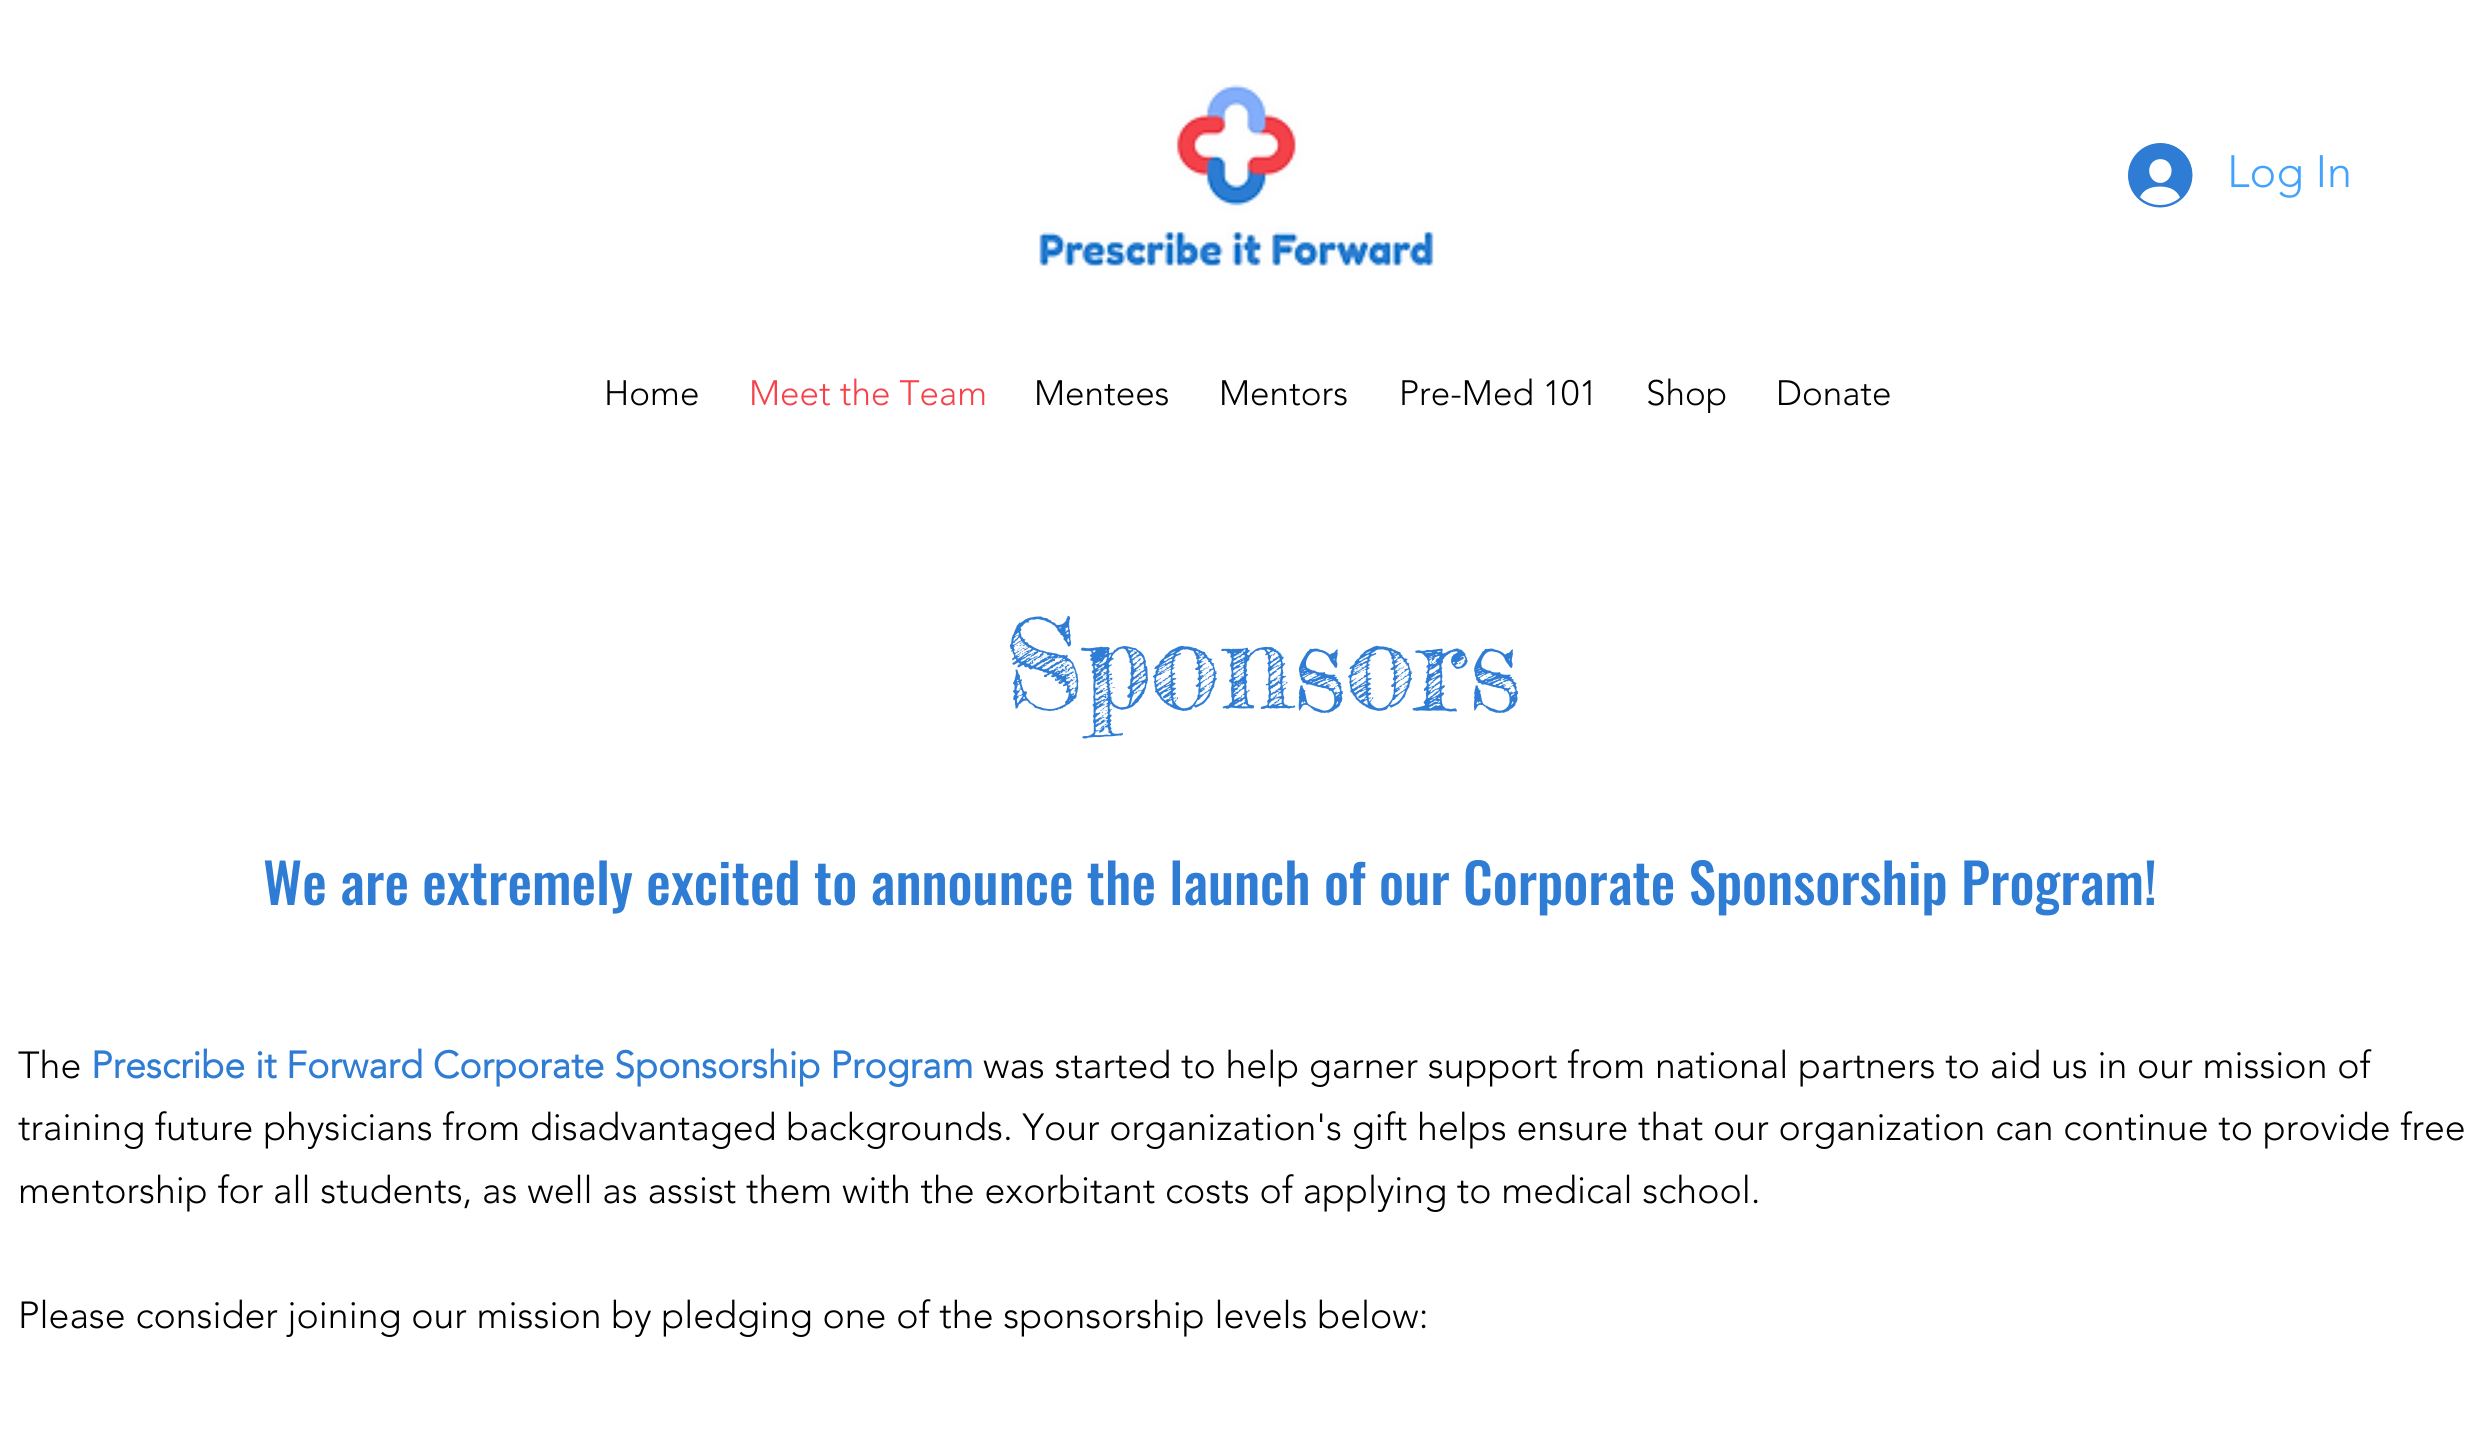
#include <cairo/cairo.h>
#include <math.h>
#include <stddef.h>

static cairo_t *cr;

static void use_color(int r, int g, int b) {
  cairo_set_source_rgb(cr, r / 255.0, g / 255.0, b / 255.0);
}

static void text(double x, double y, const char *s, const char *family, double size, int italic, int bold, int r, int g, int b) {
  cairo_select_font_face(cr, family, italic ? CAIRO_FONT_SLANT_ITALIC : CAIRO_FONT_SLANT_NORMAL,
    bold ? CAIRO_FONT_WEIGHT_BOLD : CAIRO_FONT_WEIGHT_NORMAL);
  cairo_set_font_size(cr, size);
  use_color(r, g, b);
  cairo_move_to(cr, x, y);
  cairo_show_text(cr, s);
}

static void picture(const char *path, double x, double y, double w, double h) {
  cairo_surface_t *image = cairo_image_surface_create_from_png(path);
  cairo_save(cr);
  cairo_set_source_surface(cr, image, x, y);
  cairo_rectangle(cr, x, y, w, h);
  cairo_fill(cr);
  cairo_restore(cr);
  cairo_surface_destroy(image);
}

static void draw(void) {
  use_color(255, 255, 255);
  cairo_paint(cr);
  picture("img_01.png", 1039, 84, 395, 184);
  picture("img_02.png", 2128, 143, 65, 65);
  text(2227, 187, "Log In", "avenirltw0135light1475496 Light", 45, 0, 0, 66, 163, 252);
  text(604, 405, "Home", "avenirltw0135light1475496 Light", 35, 0, 0, 0, 0, 0);
  text(749, 405, "Meet the Team", "avenirltw0135light1475496 Light", 35, 0, 0, 245, 65, 74);
  text(1034, 405, "Mentees", "avenirltw0135light1475496 Light", 35, 0, 0, 0, 0, 0);
  text(1219, 405, "Mentors", "avenirltw0135light1475496 Light", 35, 0, 0, 0, 0, 0);
  text(1399, 405, "Pre-Med 101", "avenirltw0135light1475496 Light", 35, 0, 0, 0, 0, 0);
  text(1646, 405, "Shop", "avenirltw0135light1475496 Light", 35, 0, 0, 0, 0, 0);
  text(1776, 405, "Donate", "avenirltw0135light1475496 Light", 35, 0, 0, 0, 0, 0);
  text(1004, 710, "Sponsors", "Fredericka the Great", 125, 0, 0, 46, 124, 212);
  text(263, 905, "We are extremely excited to announce the launch of our Corporate Sponsorship Program!", "Oswald Medium", 55, 0, 0, 46, 124, 212);
  text(18, 1078, "The", "avenirltw0135light1475496 Light", 37.5, 0, 0, 0, 0, 0);
  text(91, 1078, "Prescribe it Forward Corporate Sponsorship Program", "avenirltw0135light1475496", 37.5, 0, 1, 46, 124, 212);
  text(983, 1078, "was started to help garner support from national partners to aid us in our mission of", "avenirltw0135light1475496 Light", 37.5, 0, 0, 0, 0, 0);
  text(18, 1140, "training future physicians from disadvantaged backgrounds. Your organization's gift helps ensure that our organization can continue to provide free", "avenirltw0135light1475496 Light", 37.5, 0, 0, 0, 0, 0);
  text(18, 1203, "mentorship for all students, as well as assist them with the exorbitant costs of applying to medical school.", "avenirltw0135light1475496 Light", 37.5, 0, 0, 0, 0, 0);
  text(18, 1328, "Please consider joining our mission by pledging one of the sponsorship levels below:", "avenirltw0135light1475496 Light", 37.5, 0, 0, 0, 0, 0);
}

int main(void) {
  cairo_surface_t *surface = cairo_image_surface_create(CAIRO_FORMAT_RGB24, 2485, 1433);
  cr = cairo_create(surface);
  cairo_font_options_t *options = cairo_font_options_create();
  cairo_font_options_set_hint_metrics(options, CAIRO_HINT_METRICS_OFF);
  cairo_font_options_set_hint_style(options, CAIRO_HINT_STYLE_NONE);
  cairo_set_font_options(cr, options);
  cairo_set_miter_limit(cr, 4);
  draw();
  cairo_surface_write_to_png(surface, "out.png");
  cairo_font_options_destroy(options);
  cairo_destroy(cr);
  cairo_surface_destroy(surface);
  return 0;
}
